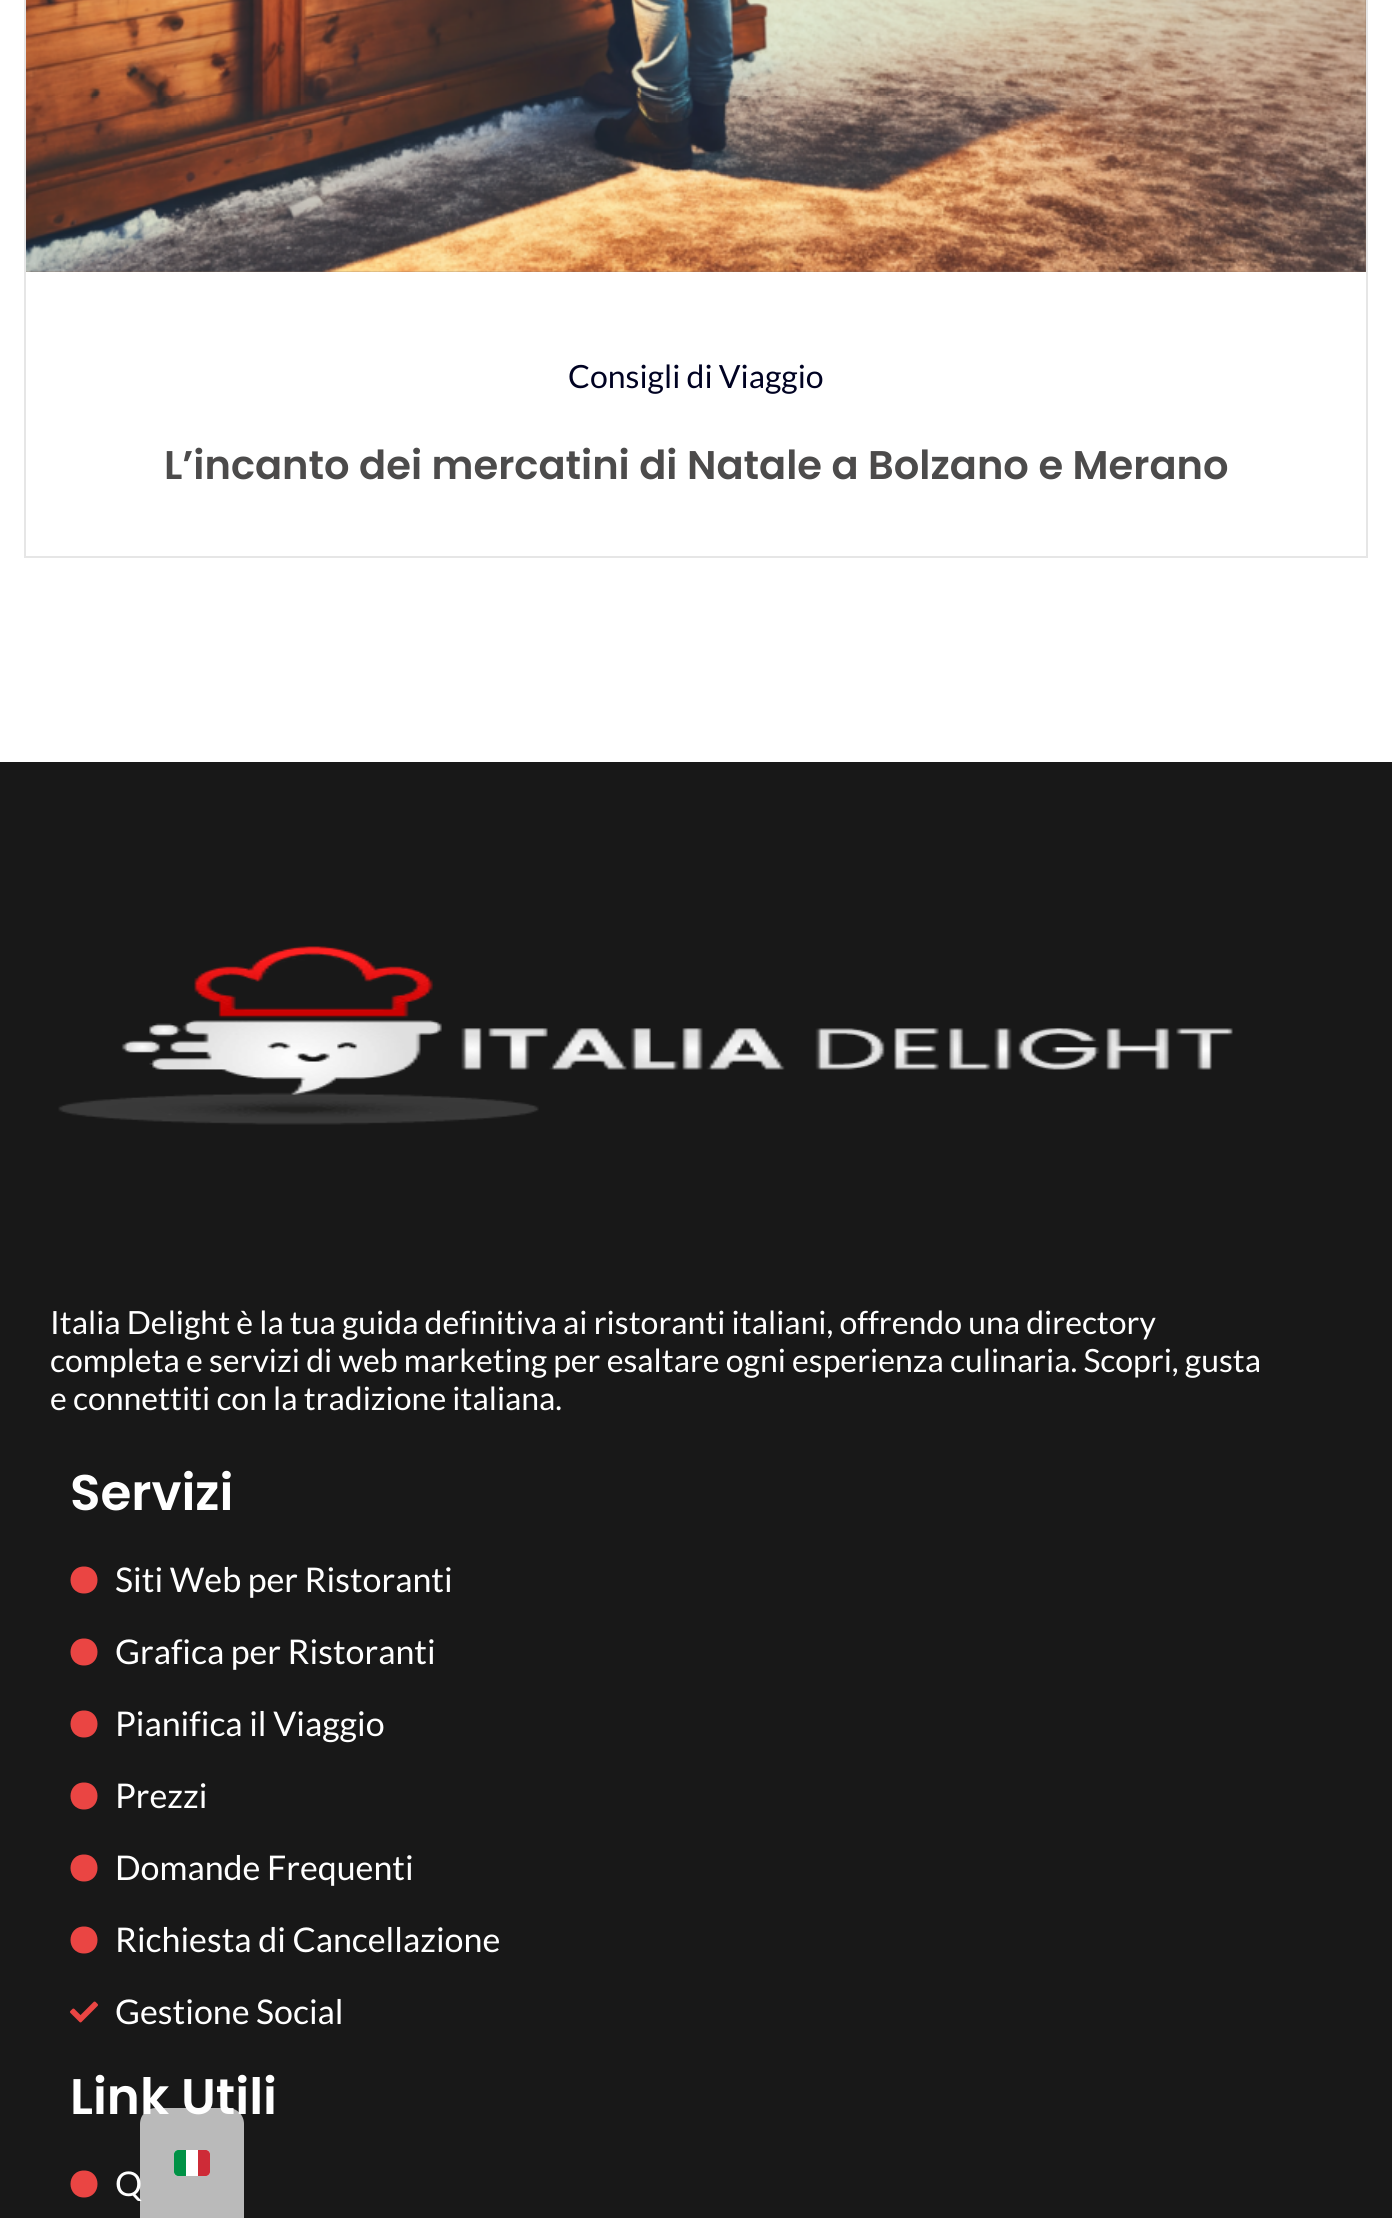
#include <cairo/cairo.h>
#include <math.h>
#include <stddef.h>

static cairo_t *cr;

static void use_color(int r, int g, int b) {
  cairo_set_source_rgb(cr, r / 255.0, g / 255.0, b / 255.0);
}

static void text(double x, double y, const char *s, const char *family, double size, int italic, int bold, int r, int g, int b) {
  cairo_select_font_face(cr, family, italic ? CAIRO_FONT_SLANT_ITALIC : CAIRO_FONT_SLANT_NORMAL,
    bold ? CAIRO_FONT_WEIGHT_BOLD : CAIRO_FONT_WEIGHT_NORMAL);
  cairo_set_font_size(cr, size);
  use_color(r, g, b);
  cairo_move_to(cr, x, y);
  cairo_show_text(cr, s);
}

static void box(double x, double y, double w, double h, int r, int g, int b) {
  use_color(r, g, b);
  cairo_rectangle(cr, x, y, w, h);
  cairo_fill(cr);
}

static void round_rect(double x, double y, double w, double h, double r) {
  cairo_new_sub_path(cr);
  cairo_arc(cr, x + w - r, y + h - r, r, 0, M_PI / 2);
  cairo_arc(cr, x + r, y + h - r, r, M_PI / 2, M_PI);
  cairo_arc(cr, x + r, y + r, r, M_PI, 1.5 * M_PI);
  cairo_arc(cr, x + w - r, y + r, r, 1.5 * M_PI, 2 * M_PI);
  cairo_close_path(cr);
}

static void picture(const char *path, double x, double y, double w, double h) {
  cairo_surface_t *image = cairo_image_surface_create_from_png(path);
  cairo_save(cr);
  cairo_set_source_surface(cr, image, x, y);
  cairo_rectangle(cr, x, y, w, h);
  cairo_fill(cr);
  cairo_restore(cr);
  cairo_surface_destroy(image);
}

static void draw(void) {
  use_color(255, 255, 255);
  cairo_paint(cr);
  cairo_rectangle(cr, 25, -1, 1342, 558);
  use_color(230, 230, 230);
  cairo_stroke(cr);
  box(26, 0, 1340, 272, 141, 113, 95);
  picture("img_01.png", 26, 0, 1340, 272);
  box(0, 762, 1392, 1456, 24, 24, 24);
  picture("img_02.png", 58, 946, 1175, 179);
  use_color(234, 69, 67);
  cairo_new_path(cr);
  cairo_move_to(cr, 84, 1566.5);
  cairo_curve_to(cr, 66, 1566.5, 66, 1593.5, 84, 1593.5);
  cairo_curve_to(cr, 102, 1593.5, 102, 1566.5, 84, 1566.5);
  cairo_close_path(cr);
  cairo_fill(cr);
  cairo_new_path(cr);
  cairo_move_to(cr, 84, 1638.5);
  cairo_curve_to(cr, 66, 1638.5, 66, 1665.5, 84, 1665.5);
  cairo_curve_to(cr, 102, 1665.5, 102, 1638.5, 84, 1638.5);
  cairo_close_path(cr);
  cairo_fill(cr);
  cairo_new_path(cr);
  cairo_move_to(cr, 84, 1710.5);
  cairo_curve_to(cr, 66, 1710.5, 66, 1737.5, 84, 1737.5);
  cairo_curve_to(cr, 102, 1737.5, 102, 1710.5, 84, 1710.5);
  cairo_close_path(cr);
  cairo_fill(cr);
  cairo_new_path(cr);
  cairo_move_to(cr, 84, 1782.5);
  cairo_curve_to(cr, 66, 1782.5, 66, 1809.5, 84, 1809.5);
  cairo_curve_to(cr, 102, 1809.5, 102, 1782.5, 84, 1782.5);
  cairo_close_path(cr);
  cairo_fill(cr);
  cairo_new_path(cr);
  cairo_move_to(cr, 84, 1854.5);
  cairo_curve_to(cr, 66, 1854.5, 66, 1881.5, 84, 1881.5);
  cairo_curve_to(cr, 102, 1881.5, 102, 1854.5, 84, 1854.5);
  cairo_close_path(cr);
  cairo_fill(cr);
  cairo_new_path(cr);
  cairo_move_to(cr, 84, 1926.5);
  cairo_curve_to(cr, 66, 1926.5, 66, 1953.5, 84, 1953.5);
  cairo_curve_to(cr, 102, 1953.5, 102, 1926.5, 84, 1926.5);
  cairo_close_path(cr);
  cairo_fill(cr);
  picture("img_03.png", 70, 2001, 28, 22);
  cairo_new_path(cr);
  cairo_move_to(cr, 84, 2170.5);
  cairo_curve_to(cr, 66, 2170.5, 66, 2197.5, 84, 2197.5);
  cairo_curve_to(cr, 102, 2197.5, 102, 2170.5, 84, 2170.5);
  cairo_close_path(cr);
  cairo_fill(cr);
  text(568, 388, "Consigli di Viaggio", "Lato", 32, 0, 0, 0, 2, 34);
  text(164, 479, "L’incanto dei mercatini di Natale a Bolzano e Merano", "Poppins SemiBold", 40, 0, 0, 76, 75, 75);
  text(50, 1334, "Italia Delight è la tua guida definitiva ai ristoranti italiani, offrendo una directory", "Lato", 32, 0, 0, 255, 255, 255);
  text(50, 1372, "completa e servizi di web marketing per esaltare ogni esperienza culinaria. Scopri, gusta", "Lato", 32, 0, 0, 255, 255, 255);
  text(50, 1410, "e connettiti con la tradizione italiana.", "Lato", 32, 0, 0, 255, 255, 255);
  text(70, 1510, "Servizi", "Poppins SemiBold", 50, 0, 0, 255, 255, 255);
  text(115, 1592, "Siti Web per Ristoranti", "Lato", 34, 0, 0, 255, 255, 255);
  text(115, 1664, "Grafica per Ristoranti", "Lato", 34, 0, 0, 255, 255, 255);
  text(115, 1736, "Pianifica il Viaggio", "Lato", 34, 0, 0, 255, 255, 255);
  text(115, 1808, "Prezzi", "Lato", 34, 0, 0, 255, 255, 255);
  text(115, 1880, "Domande Frequenti", "Lato", 34, 0, 0, 255, 255, 255);
  text(115, 1952, "Richiesta di Cancellazione", "Lato", 34, 0, 0, 255, 255, 255);
  text(115, 2024, "Gestione Social", "Lato", 34, 0, 0, 255, 255, 255);
  text(70, 2114, "Link Utili", "Poppins SemiBold", 50, 0, 0, 255, 255, 255);
  text(115, 2196, "Q", "Lato", 34, 0, 0, 255, 255, 255);
  cairo_set_source_rgba(cr, 1, 1, 1, 0.7);
  cairo_new_path(cr);
  cairo_move_to(cr, 156, 2108);
  cairo_line_to(cr, 228, 2108);
  cairo_curve_to(cr, 237, 2108, 244, 2115, 244, 2124);
  cairo_line_to(cr, 244, 2218);
  cairo_line_to(cr, 140, 2218);
  cairo_line_to(cr, 140, 2124);
  cairo_curve_to(cr, 140, 2115, 147, 2108, 156, 2108);
  cairo_close_path(cr);
  cairo_fill(cr);
  use_color(255, 255, 255);
  round_rect(174, 2150, 36, 26, 4);
  cairo_fill(cr);
  use_color(0, 146, 70);
  cairo_new_path(cr);
  cairo_move_to(cr, 178, 2150);
  cairo_line_to(cr, 186, 2150);
  cairo_line_to(cr, 186, 2176);
  cairo_line_to(cr, 178, 2176);
  cairo_curve_to(cr, 176, 2176, 174, 2174, 174, 2172);
  cairo_line_to(cr, 174, 2154);
  cairo_curve_to(cr, 174, 2152, 176, 2150, 178, 2150);
  cairo_close_path(cr);
  cairo_fill(cr);
  use_color(206, 43, 55);
  cairo_new_path(cr);
  cairo_move_to(cr, 198, 2150);
  cairo_line_to(cr, 206, 2150);
  cairo_curve_to(cr, 208, 2150, 210, 2152, 210, 2154);
  cairo_line_to(cr, 210, 2172);
  cairo_curve_to(cr, 210, 2174, 208, 2176, 206, 2176);
  cairo_line_to(cr, 198, 2176);
  cairo_close_path(cr);
  cairo_fill(cr);
}

int main(void) {
  cairo_surface_t *surface = cairo_image_surface_create(CAIRO_FORMAT_RGB24, 1392, 2218);
  cr = cairo_create(surface);
  cairo_font_options_t *options = cairo_font_options_create();
  cairo_font_options_set_hint_metrics(options, CAIRO_HINT_METRICS_OFF);
  cairo_font_options_set_hint_style(options, CAIRO_HINT_STYLE_NONE);
  cairo_set_font_options(cr, options);
  cairo_set_miter_limit(cr, 4);
  draw();
  cairo_surface_write_to_png(surface, "out.png");
  cairo_font_options_destroy(options);
  cairo_destroy(cr);
  cairo_surface_destroy(surface);
  return 0;
}
